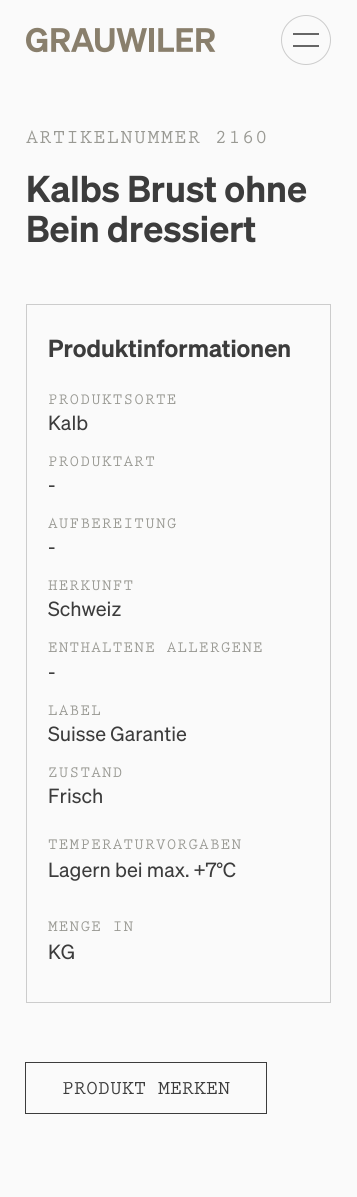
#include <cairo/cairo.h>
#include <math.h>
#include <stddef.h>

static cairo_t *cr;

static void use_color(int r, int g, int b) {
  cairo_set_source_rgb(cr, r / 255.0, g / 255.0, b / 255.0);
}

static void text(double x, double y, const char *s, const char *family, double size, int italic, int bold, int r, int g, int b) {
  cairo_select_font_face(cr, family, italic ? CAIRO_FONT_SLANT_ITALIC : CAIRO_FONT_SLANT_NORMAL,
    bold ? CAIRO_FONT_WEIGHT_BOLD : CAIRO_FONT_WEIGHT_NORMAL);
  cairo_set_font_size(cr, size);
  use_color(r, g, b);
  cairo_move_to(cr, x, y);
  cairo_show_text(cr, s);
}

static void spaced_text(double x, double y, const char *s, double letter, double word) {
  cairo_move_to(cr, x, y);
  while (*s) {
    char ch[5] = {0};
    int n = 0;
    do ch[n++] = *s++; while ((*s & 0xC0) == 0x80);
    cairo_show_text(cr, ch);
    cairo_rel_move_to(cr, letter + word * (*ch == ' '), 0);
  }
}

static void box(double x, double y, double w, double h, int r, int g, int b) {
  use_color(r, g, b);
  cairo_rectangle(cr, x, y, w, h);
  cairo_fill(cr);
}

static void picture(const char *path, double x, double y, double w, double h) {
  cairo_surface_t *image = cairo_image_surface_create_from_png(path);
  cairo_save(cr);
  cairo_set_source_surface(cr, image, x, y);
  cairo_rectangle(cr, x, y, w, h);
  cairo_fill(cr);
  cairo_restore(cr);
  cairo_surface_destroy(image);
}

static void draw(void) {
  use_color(250, 250, 250);
  cairo_paint(cr);
  picture("img_01.png", 26, 27, 190, 26);
  cairo_arc(cr, 306, 40, 24.5, 0, 2 * M_PI);
  use_color(204, 204, 204);
  cairo_set_line_width(cr, 1);
  cairo_stroke(cr);
  box(293, 33, 26, 2, 102, 102, 102);
  box(293, 45, 26, 2, 102, 102, 102);
  cairo_rectangle(cr, 26.5, 304.5, 304, 698);
  use_color(204, 204, 204);
  cairo_stroke(cr);
  cairo_rectangle(cr, 25.5, 1062.5, 241, 51);
  use_color(60, 60, 60);
  cairo_stroke(cr);
  cairo_select_font_face(cr, "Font", CAIRO_FONT_SLANT_NORMAL, CAIRO_FONT_WEIGHT_BOLD);
  cairo_set_font_size(cr, 20);
  use_color(153, 153, 147);
  spaced_text(26, 143, "ARTIKELNUMMER 2160", 1.5, 0);
  text(26, 202, "Kalbs Brust ohne", "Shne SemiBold", 36.5, 0, 0, 60, 60, 60);
  text(26, 242, "Bein dressiert", "Shne SemiBold", 36.5, 0, 0, 60, 60, 60);
  text(48, 357, "Produktinformationen", "Shne SemiBold", 24.1, 0, 0, 60, 60, 60);
  cairo_select_font_face(cr, "Font", CAIRO_FONT_SLANT_NORMAL, CAIRO_FONT_WEIGHT_BOLD);
  cairo_set_font_size(cr, 16);
  use_color(153, 153, 147);
  spaced_text(48, 404, "PRODUKTSORTE", 1.2, 0);
  text(48, 430, "Kalb", "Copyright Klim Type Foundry", 20, 0, 0, 60, 60, 60);
  cairo_select_font_face(cr, "Font", CAIRO_FONT_SLANT_NORMAL, CAIRO_FONT_WEIGHT_BOLD);
  cairo_set_font_size(cr, 16);
  use_color(153, 153, 147);
  spaced_text(48, 466, "PRODUKTART", 1.2, 0);
  text(48, 492, "-", "Copyright Klim Type Foundry", 20, 0, 0, 60, 60, 60);
  cairo_select_font_face(cr, "Font", CAIRO_FONT_SLANT_NORMAL, CAIRO_FONT_WEIGHT_BOLD);
  cairo_set_font_size(cr, 16);
  use_color(153, 153, 147);
  spaced_text(48, 528, "AUFBEREITUNG", 1.2, 0);
  text(48, 554, "-", "Copyright Klim Type Foundry", 20, 0, 0, 60, 60, 60);
  cairo_select_font_face(cr, "Font", CAIRO_FONT_SLANT_NORMAL, CAIRO_FONT_WEIGHT_BOLD);
  cairo_set_font_size(cr, 16);
  use_color(153, 153, 147);
  spaced_text(48, 590, "HERKUNFT", 1.2, 0);
  text(48, 616, "Schweiz", "Copyright Klim Type Foundry", 20, 0, 0, 60, 60, 60);
  cairo_select_font_face(cr, "Font", CAIRO_FONT_SLANT_NORMAL, CAIRO_FONT_WEIGHT_BOLD);
  cairo_set_font_size(cr, 16);
  use_color(153, 153, 147);
  spaced_text(48, 652, "ENTHALTENE ALLERGENE", 1.2, 0);
  text(48, 679, "-", "Copyright Klim Type Foundry", 20, 0, 0, 60, 60, 60);
  cairo_select_font_face(cr, "Font", CAIRO_FONT_SLANT_NORMAL, CAIRO_FONT_WEIGHT_BOLD);
  cairo_set_font_size(cr, 16);
  use_color(153, 153, 147);
  spaced_text(48, 715, "LABEL", 1.2, 0);
  text(48, 741, "Suisse Garantie", "Copyright Klim Type Foundry", 20, 0, 0, 60, 60, 60);
  cairo_select_font_face(cr, "Font", CAIRO_FONT_SLANT_NORMAL, CAIRO_FONT_WEIGHT_BOLD);
  cairo_set_font_size(cr, 16);
  use_color(153, 153, 147);
  spaced_text(48, 777, "ZUSTAND", 1.2, 0);
  text(48, 803, "Frisch", "Copyright Klim Type Foundry", 20, 0, 0, 60, 60, 60);
  cairo_select_font_face(cr, "Font", CAIRO_FONT_SLANT_NORMAL, CAIRO_FONT_WEIGHT_BOLD);
  cairo_set_font_size(cr, 16);
  use_color(153, 153, 147);
  spaced_text(48, 849, "TEMPERATURVORGABEN", 1.2, 0);
  text(48, 877, "Lagern bei max. +7°C", "Copyright Klim Type Foundry", 20, 0, 0, 60, 60, 60);
  cairo_select_font_face(cr, "Font", CAIRO_FONT_SLANT_NORMAL, CAIRO_FONT_WEIGHT_BOLD);
  cairo_set_font_size(cr, 16);
  use_color(153, 153, 147);
  spaced_text(48, 931, "MENGE IN", 1.2, 0);
  text(48, 959, "KG", "Copyright Klim Type Foundry", 20, 0, 0, 60, 60, 60);
  text(62, 1094, "PRODUKT MERKEN", "Font", 20, 0, 1, 60, 60, 60);
}

int main(void) {
  cairo_surface_t *surface = cairo_image_surface_create(CAIRO_FORMAT_RGB24, 357, 1197);
  cr = cairo_create(surface);
  cairo_font_options_t *options = cairo_font_options_create();
  cairo_font_options_set_hint_metrics(options, CAIRO_HINT_METRICS_OFF);
  cairo_font_options_set_hint_style(options, CAIRO_HINT_STYLE_NONE);
  cairo_set_font_options(cr, options);
  cairo_set_miter_limit(cr, 4);
  draw();
  cairo_surface_write_to_png(surface, "out.png");
  cairo_font_options_destroy(options);
  cairo_destroy(cr);
  cairo_surface_destroy(surface);
  return 0;
}
